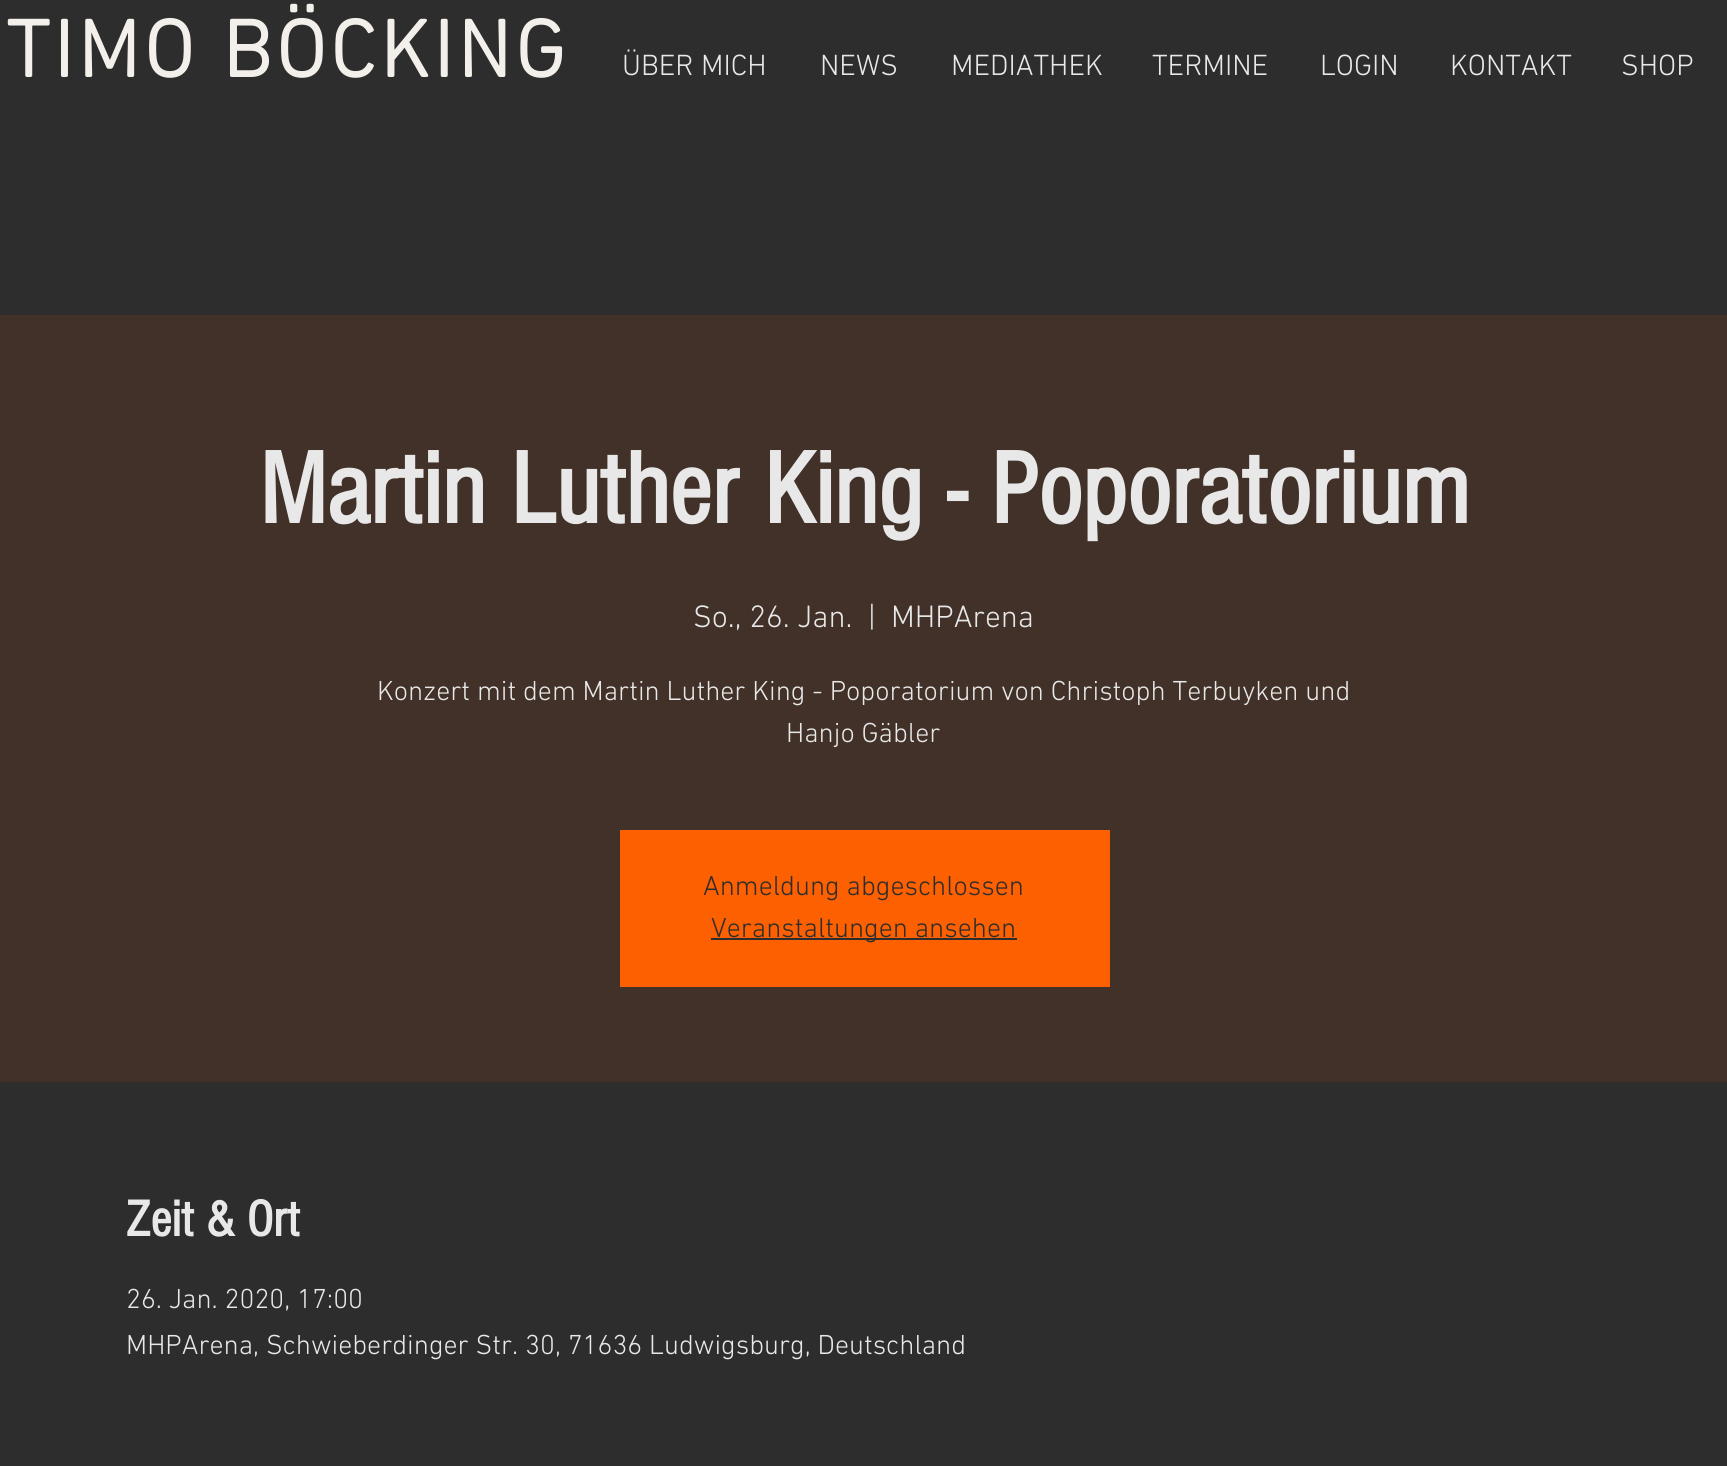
#include <cairo/cairo.h>
#include <math.h>
#include <stddef.h>

static cairo_t *cr;

static void use_color(int r, int g, int b) {
  cairo_set_source_rgb(cr, r / 255.0, g / 255.0, b / 255.0);
}

static void text(double x, double y, const char *s, const char *family, double size, int italic, int bold, int r, int g, int b) {
  cairo_select_font_face(cr, family, italic ? CAIRO_FONT_SLANT_ITALIC : CAIRO_FONT_SLANT_NORMAL,
    bold ? CAIRO_FONT_WEIGHT_BOLD : CAIRO_FONT_WEIGHT_NORMAL);
  cairo_set_font_size(cr, size);
  use_color(r, g, b);
  cairo_move_to(cr, x, y);
  cairo_show_text(cr, s);
}

static void spaced_text(double x, double y, const char *s, double letter, double word) {
  cairo_move_to(cr, x, y);
  while (*s) {
    char ch[5] = {0};
    int n = 0;
    do ch[n++] = *s++; while ((*s & 0xC0) == 0x80);
    cairo_show_text(cr, ch);
    cairo_rel_move_to(cr, letter + word * (*ch == ' '), 0);
  }
}

static void box(double x, double y, double w, double h, int r, int g, int b) {
  use_color(r, g, b);
  cairo_rectangle(cr, x, y, w, h);
  cairo_fill(cr);
}

static void draw(void) {
  use_color(45, 45, 45);
  cairo_paint(cr);
  box(0, 315, 1727, 767, 65, 49, 40);
  box(620, 830, 490, 157, 252, 96, 0);
  box(711, 938, 306, 2, 45, 45, 45);
  cairo_select_font_face(cr, "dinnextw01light", CAIRO_FONT_SLANT_NORMAL, CAIRO_FONT_WEIGHT_BOLD);
  cairo_set_font_size(cr, 82.25);
  use_color(243, 240, 235);
  spaced_text(6, 77, "TIMO BÖCKING", 4.1, 0);
  text(622, 75, "ÜBER MICH", "dinnextw01light Light", 29.75, 0, 0, 232, 232, 232);
  text(820, 75, "NEWS", "dinnextw01light Light", 29.75, 0, 0, 232, 232, 232);
  text(951, 75, "MEDIATHEK", "dinnextw01light Light", 29.75, 0, 0, 232, 232, 232);
  text(1152, 75, "TERMINE", "dinnextw01light Light", 29.75, 0, 0, 232, 232, 232);
  text(1320, 75, "LOGIN", "dinnextw01light Light", 29.75, 0, 0, 232, 232, 232);
  text(1450, 75, "KONTAKT", "dinnextw01light Light", 29.75, 0, 0, 232, 232, 232);
  text(1621, 75, "SHOP", "dinnextw01light Light", 29.75, 0, 0, 232, 232, 232);
  text(259, 523, "Martin Luther King - Poporatorium", "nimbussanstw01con", 105, 0, 1, 232, 232, 232);
  text(693, 627, "So., 26. Jan.", "dinnextw01light Light", 31.5, 0, 0, 232, 232, 232);
  text(868, 627, "|", "dinnextw01light Light", 31.5, 0, 0, 232, 232, 232);
  text(891, 627, "MHPArena", "dinnextw01light Light", 31.5, 0, 0, 232, 232, 232);
  text(377, 700, "Konzert mit dem Martin Luther King - Poporatorium von Christoph Terbuyken und", "dinnextw01light Light", 28, 0, 0, 232, 232, 232);
  text(786, 742, "Hanjo Gäbler", "dinnextw01light Light", 28, 0, 0, 232, 232, 232);
  text(703, 895, "Anmeldung abgeschlossen", "dinnextw01light Light", 28, 0, 0, 45, 45, 45);
  text(711, 937, "Veranstaltungen ansehen", "dinnextw01light Light", 28, 0, 0, 45, 45, 45);
  text(126, 1236, "Zeit & Ort", "nimbussanstw01con", 52.5, 0, 1, 232, 232, 232);
  text(126, 1308, "26. Jan. 2020, 17:00", "dinnextw01light Light", 28, 0, 0, 232, 232, 232);
  text(126, 1354, "MHPArena, Schwieberdinger Str. 30, 71636 Ludwigsburg, Deutschland", "dinnextw01light Light", 28, 0, 0, 232, 232, 232);
}

int main(void) {
  cairo_surface_t *surface = cairo_image_surface_create(CAIRO_FORMAT_RGB24, 1727, 1466);
  cr = cairo_create(surface);
  cairo_font_options_t *options = cairo_font_options_create();
  cairo_font_options_set_hint_metrics(options, CAIRO_HINT_METRICS_OFF);
  cairo_font_options_set_hint_style(options, CAIRO_HINT_STYLE_NONE);
  cairo_set_font_options(cr, options);
  cairo_set_miter_limit(cr, 4);
  draw();
  cairo_surface_write_to_png(surface, "out.png");
  cairo_font_options_destroy(options);
  cairo_destroy(cr);
  cairo_surface_destroy(surface);
  return 0;
}
